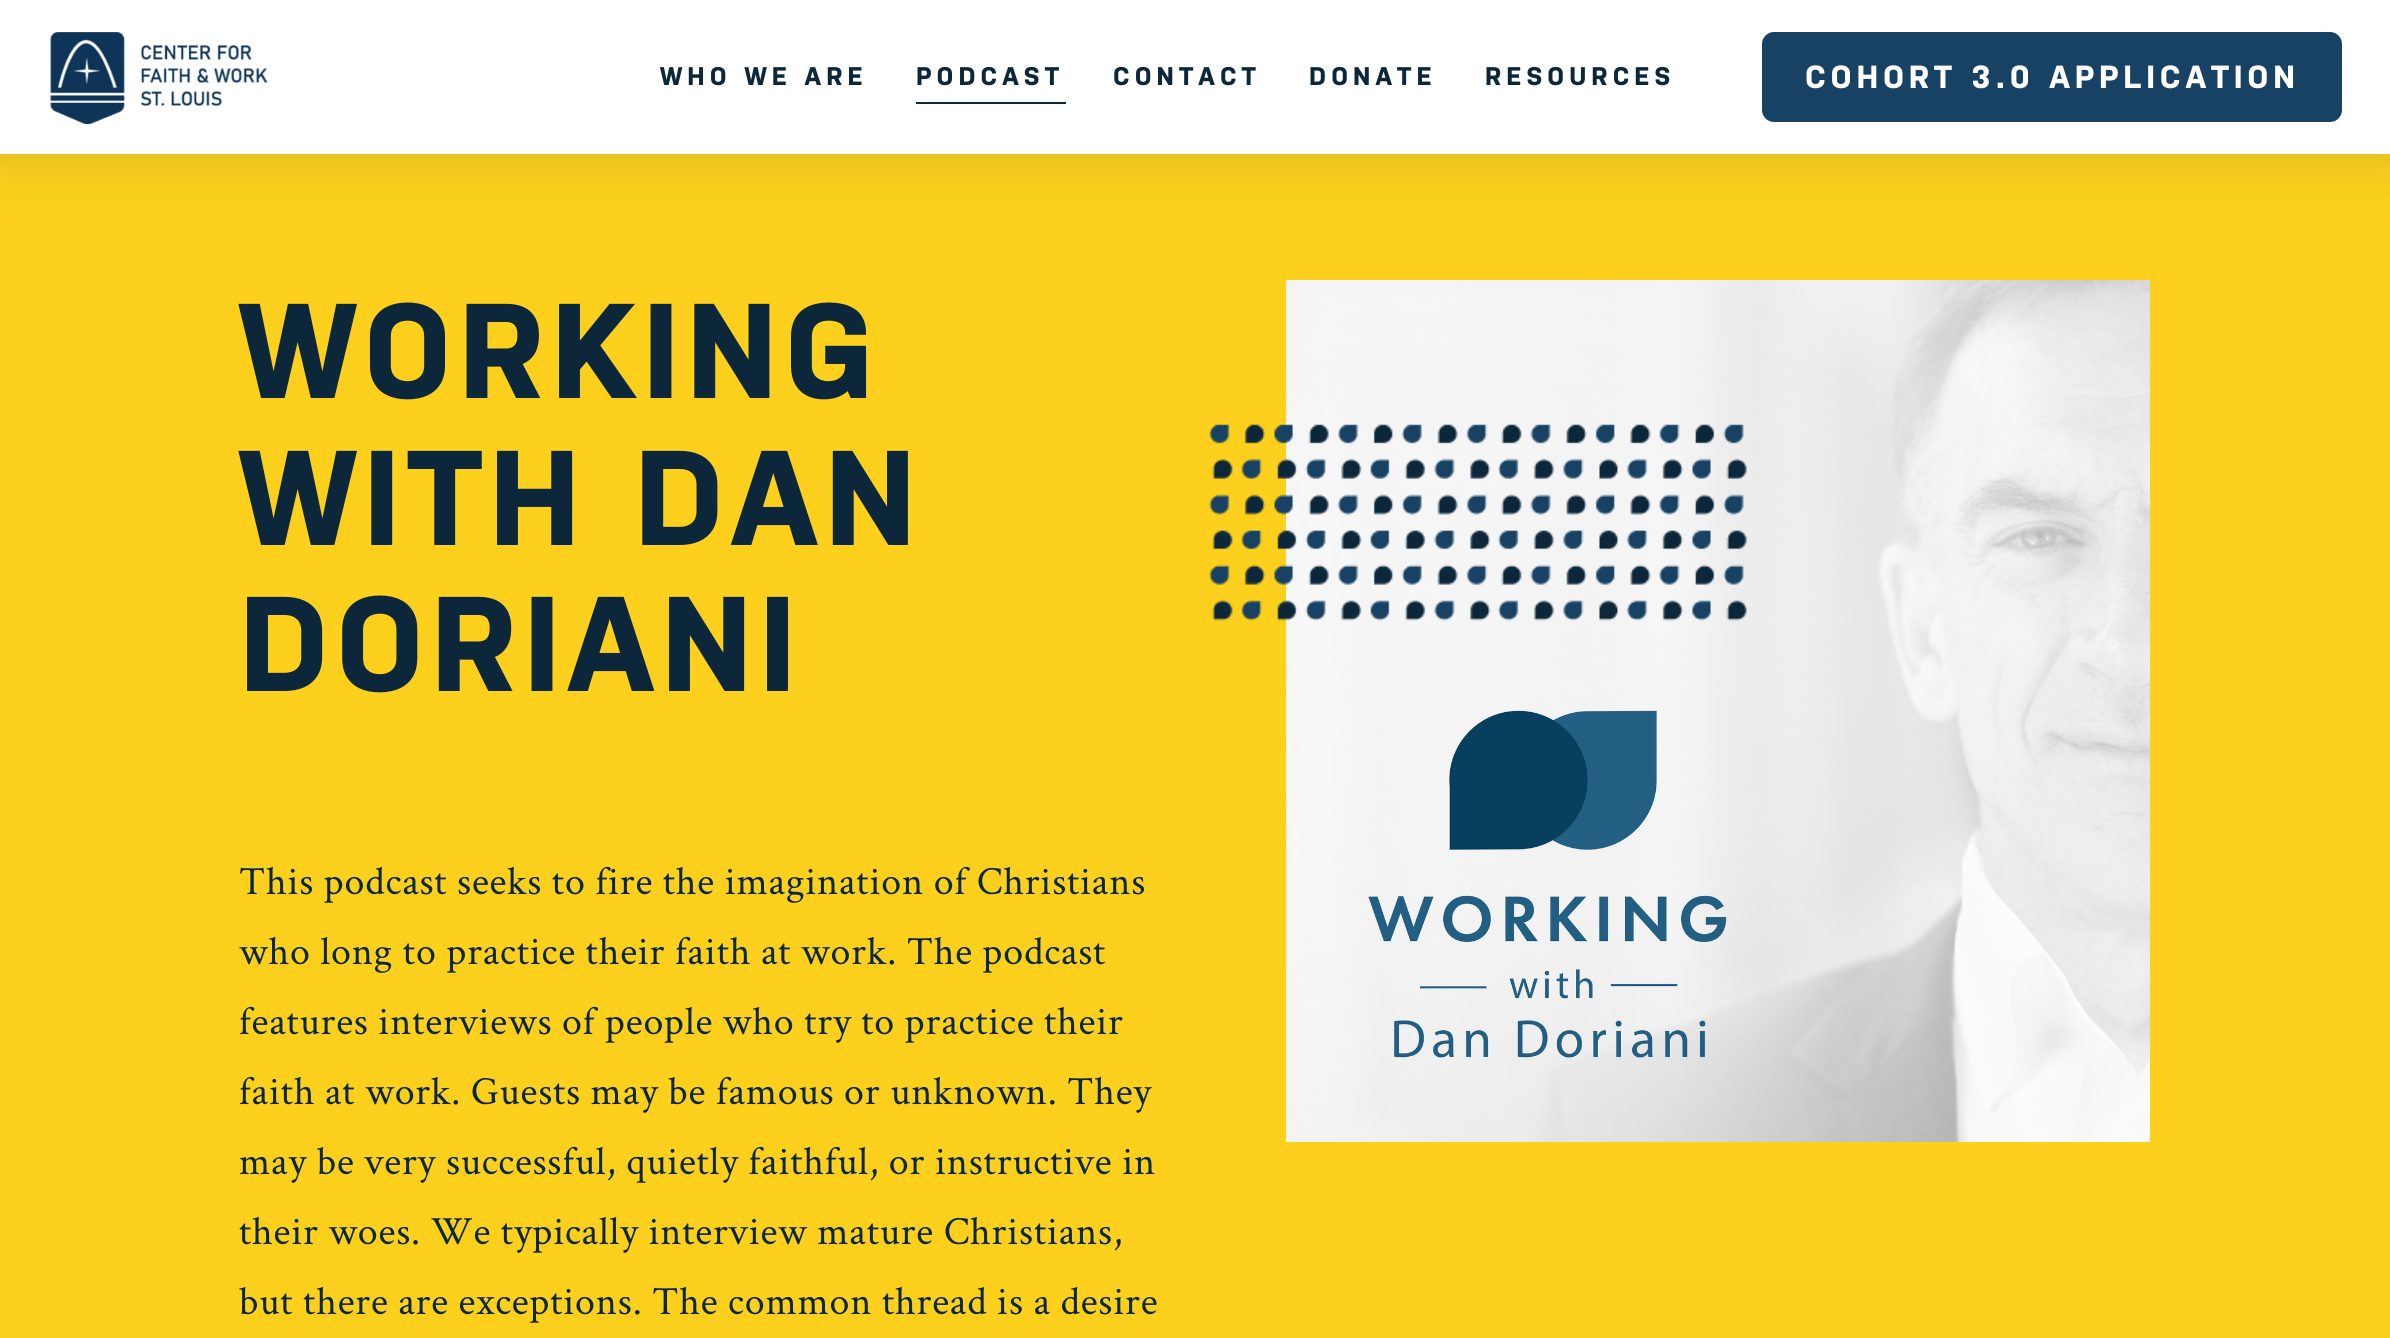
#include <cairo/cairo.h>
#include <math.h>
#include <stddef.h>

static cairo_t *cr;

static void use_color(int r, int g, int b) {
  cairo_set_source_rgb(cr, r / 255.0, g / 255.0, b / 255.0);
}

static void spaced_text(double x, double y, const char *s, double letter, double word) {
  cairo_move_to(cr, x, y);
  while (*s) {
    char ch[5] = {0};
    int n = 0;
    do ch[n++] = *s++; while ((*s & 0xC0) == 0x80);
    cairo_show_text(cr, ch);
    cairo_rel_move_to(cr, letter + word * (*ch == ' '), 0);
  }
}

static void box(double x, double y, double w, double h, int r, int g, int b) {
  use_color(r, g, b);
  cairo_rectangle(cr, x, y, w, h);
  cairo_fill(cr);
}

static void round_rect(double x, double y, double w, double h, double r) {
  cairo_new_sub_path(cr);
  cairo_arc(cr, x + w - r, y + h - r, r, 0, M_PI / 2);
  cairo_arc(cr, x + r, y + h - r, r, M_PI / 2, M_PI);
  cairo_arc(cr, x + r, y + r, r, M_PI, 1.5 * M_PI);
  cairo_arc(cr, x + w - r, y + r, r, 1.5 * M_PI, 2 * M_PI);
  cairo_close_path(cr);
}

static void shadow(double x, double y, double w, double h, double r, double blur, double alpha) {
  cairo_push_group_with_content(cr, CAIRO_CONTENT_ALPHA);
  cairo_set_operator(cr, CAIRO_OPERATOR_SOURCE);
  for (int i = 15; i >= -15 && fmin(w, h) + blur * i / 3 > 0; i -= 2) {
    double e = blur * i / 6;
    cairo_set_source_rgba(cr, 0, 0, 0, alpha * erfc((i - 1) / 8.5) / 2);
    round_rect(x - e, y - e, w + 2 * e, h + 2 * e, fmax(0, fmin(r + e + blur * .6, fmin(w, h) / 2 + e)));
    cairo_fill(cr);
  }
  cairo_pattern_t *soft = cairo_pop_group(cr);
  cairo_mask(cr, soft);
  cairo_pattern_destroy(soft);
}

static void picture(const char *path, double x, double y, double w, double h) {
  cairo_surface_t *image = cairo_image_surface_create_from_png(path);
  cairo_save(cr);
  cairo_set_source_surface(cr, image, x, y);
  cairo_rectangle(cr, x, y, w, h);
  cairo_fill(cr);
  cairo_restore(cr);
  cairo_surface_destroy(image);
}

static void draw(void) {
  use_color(252, 208, 28);
  cairo_paint(cr);
  use_color(216, 183, 33);
  shadow(0, 0, 2390, 154, 0, 30, 1);
  box(0, 0, 2390, 154, 255, 255, 255);
  picture("img_01.png", 50, 32, 218, 92);
  box(916, 102, 150, 2, 13, 39, 58);
  use_color(24, 66, 99);
  round_rect(1762, 32, 580, 90, 12);
  cairo_fill(cr);
  picture("img_02.png", 1286, 280, 864, 862);
  picture("img_03.png", 1209, 424, 538, 197);
  cairo_select_font_face(cr, "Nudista", CAIRO_FONT_SLANT_NORMAL, CAIRO_FONT_WEIGHT_BOLD);
  cairo_set_font_size(cr, 25.5);
  use_color(13, 39, 58);
  spaced_text(660, 85, "WHO WE ARE", 5.1, 0);
  spaced_text(916, 85, "PODCAST", 5.1, 0);
  spaced_text(1113, 85, "CONTACT", 5.1, 0);
  spaced_text(1309, 85, "DONATE", 5.1, 0);
  spaced_text(1485, 85, "RESOURCES", 5.1, 0);
  cairo_set_font_size(cr, 32);
  use_color(255, 255, 255);
  spaced_text(1805, 88, "COHORT 3.0 APPLICATION", 4.8, 0);
  cairo_set_font_size(cr, 134.5);
  use_color(13, 39, 58);
  spaced_text(239, 398, "WORKING", 6.75, 0);
  spaced_text(239, 545, "WITH DAN", 6.75, 0);
  spaced_text(239, 691, "DORIANI", 6.75, 0);
  cairo_select_font_face(cr, "Crimson Text", CAIRO_FONT_SLANT_NORMAL, CAIRO_FONT_WEIGHT_NORMAL);
  cairo_set_font_size(cr, 40);
  spaced_text(239, 894, "This podcast seeks to fire the imagination of Christians", 0.8, 0);
  spaced_text(239, 964, "who long to practice their faith at work. The podcast", 0.8, 0);
  spaced_text(239, 1034, "features interviews of people who try to practice their", 0.8, 0);
  spaced_text(239, 1104, "faith at work. Guests may be famous or unknown. They", 0.8, 0);
  spaced_text(239, 1174, "may be very successful, quietly faithful, or instructive in", 0.8, 0);
  spaced_text(239, 1244, "their woes. We typically interview mature Christians,", 0.8, 0);
  spaced_text(239, 1314, "but there are exceptions. The common thread is a desire", 0.8, 0);
}

int main(void) {
  cairo_surface_t *surface = cairo_image_surface_create(CAIRO_FORMAT_RGB24, 2390, 1338);
  cr = cairo_create(surface);
  cairo_font_options_t *options = cairo_font_options_create();
  cairo_font_options_set_hint_metrics(options, CAIRO_HINT_METRICS_OFF);
  cairo_font_options_set_hint_style(options, CAIRO_HINT_STYLE_NONE);
  cairo_set_font_options(cr, options);
  cairo_set_miter_limit(cr, 4);
  draw();
  cairo_surface_write_to_png(surface, "out.png");
  cairo_font_options_destroy(options);
  cairo_destroy(cr);
  cairo_surface_destroy(surface);
  return 0;
}
